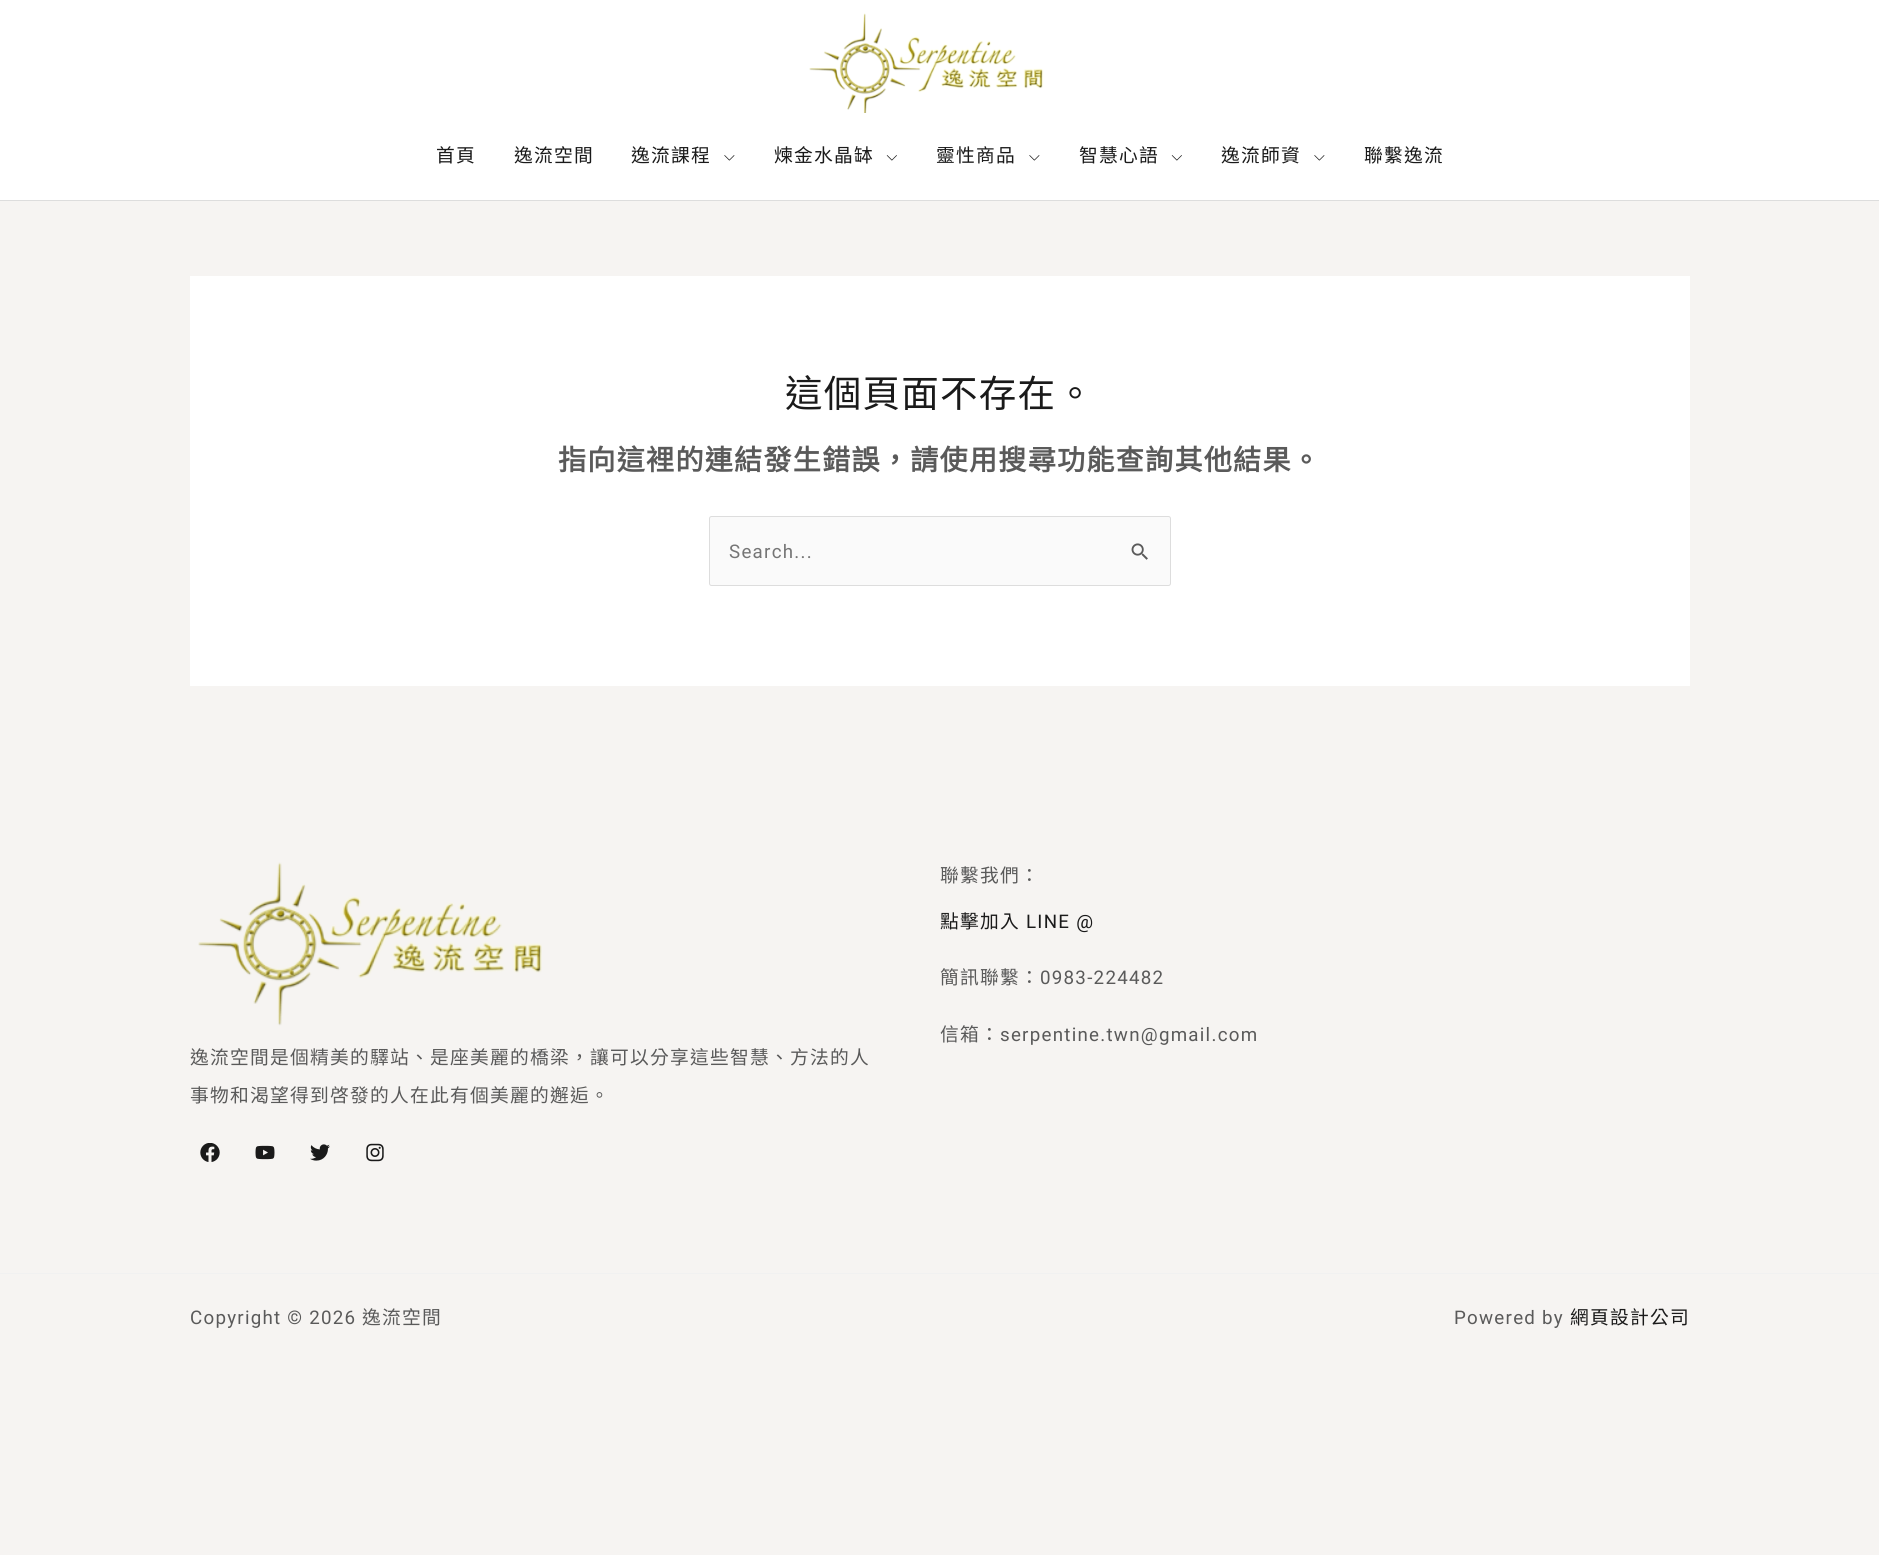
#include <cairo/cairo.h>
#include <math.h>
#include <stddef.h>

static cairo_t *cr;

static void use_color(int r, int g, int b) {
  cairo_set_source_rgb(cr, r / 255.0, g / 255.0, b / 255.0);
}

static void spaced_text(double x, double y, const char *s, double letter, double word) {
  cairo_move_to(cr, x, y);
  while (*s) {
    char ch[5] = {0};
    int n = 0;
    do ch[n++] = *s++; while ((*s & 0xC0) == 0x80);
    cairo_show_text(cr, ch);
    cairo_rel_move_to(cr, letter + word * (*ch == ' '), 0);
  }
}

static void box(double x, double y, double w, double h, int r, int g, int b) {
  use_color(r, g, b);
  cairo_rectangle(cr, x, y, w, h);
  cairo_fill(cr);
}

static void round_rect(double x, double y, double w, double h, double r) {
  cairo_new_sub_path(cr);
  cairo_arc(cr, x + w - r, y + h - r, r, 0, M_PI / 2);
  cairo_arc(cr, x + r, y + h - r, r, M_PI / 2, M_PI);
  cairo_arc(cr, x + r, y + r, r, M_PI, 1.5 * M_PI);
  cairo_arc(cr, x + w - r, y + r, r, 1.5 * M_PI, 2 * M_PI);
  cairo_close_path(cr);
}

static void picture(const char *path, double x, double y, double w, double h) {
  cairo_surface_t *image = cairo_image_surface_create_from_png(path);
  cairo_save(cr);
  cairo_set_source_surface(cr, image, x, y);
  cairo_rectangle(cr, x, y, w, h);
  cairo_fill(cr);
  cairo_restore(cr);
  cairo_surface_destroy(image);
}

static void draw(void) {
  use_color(246, 244, 242);
  cairo_paint(cr);
  box(0, 0, 1879, 200, 255, 255, 255);
  picture("img_01.png", 809, 13, 235, 100);
  box(0, 200, 1879, 1, 221, 221, 221);
  picture("img_02.png", 724, 155, 11, 6);
  picture("img_03.png", 886, 155, 11, 6);
  picture("img_02.png", 1029, 155, 11, 6);
  picture("img_03.png", 1171, 155, 11, 6);
  picture("img_02.png", 1314, 155, 11, 6);
  box(190, 276, 1500, 410, 255, 255, 255);
  use_color(250, 250, 250);
  round_rect(709.5, 516.5, 461, 69, 2);
  cairo_fill_preserve(cr);
  use_color(221, 221, 221);
  cairo_set_line_width(cr, 1);
  cairo_stroke(cr);
  picture("img_04.png", 1131, 543, 17, 17);
  picture("img_05.png", 198, 862, 344, 164);
  picture("img_06.png", 200, 1143, 20, 19);
  picture("img_07.png", 255, 1145, 20, 15);
  picture("img_08.png", 310, 1144, 20, 17);
  picture("img_09.png", 366, 1143, 18, 19);
  box(0, 1273, 1879, 1, 241, 241, 241);
  cairo_select_font_face(cr, "Noto Sans CJK TC", CAIRO_FONT_SLANT_NORMAL, CAIRO_FONT_WEIGHT_NORMAL);
  cairo_set_font_size(cr, 18.75);
  use_color(26, 26, 26);
  spaced_text(436, 162, "首頁", 1.25, 0);
  spaced_text(514, 162, "逸流空間", 1.25, 0);
  spaced_text(631, 162, "逸流課程", 1.25, 0);
  spaced_text(774, 162, "煉金水晶缽", 1.25, 0);
  spaced_text(936, 162, "靈性商品", 1.25, 0);
  spaced_text(1079, 162, "智慧心語", 1.25, 0);
  spaced_text(1221, 162, "逸流師資", 1.25, 0);
  spaced_text(1364, 162, "聯繫逸流", 1.25, 0);
  cairo_set_font_size(cr, 37.5);
  spaced_text(785, 407, "這個頁面不存在。", 1.25, 0);
  cairo_select_font_face(cr, "Noto Sans CJK TC", CAIRO_FONT_SLANT_NORMAL, CAIRO_FONT_WEIGHT_BOLD);
  cairo_set_font_size(cr, 28.1);
  use_color(90, 90, 90);
  spaced_text(558, 470, "指向這裡的連結發生錯誤，請使用搜尋功能查詢其他結果。", 1.25, 0);
  cairo_select_font_face(cr, "Roboto", CAIRO_FONT_SLANT_NORMAL, CAIRO_FONT_WEIGHT_NORMAL);
  cairo_set_font_size(cr, 18.75);
  use_color(117, 117, 117);
  spaced_text(729, 558, "Search...", 1.25, 0);
  cairo_select_font_face(cr, "Noto Sans CJK TC", CAIRO_FONT_SLANT_NORMAL, CAIRO_FONT_WEIGHT_NORMAL);
  use_color(90, 90, 90);
  spaced_text(940, 882, "聯繫我們：", 1.25, 0);
  use_color(26, 26, 26);
  spaced_text(940, 928, "點擊加入", 1.25, 0);
  cairo_select_font_face(cr, "Roboto", CAIRO_FONT_SLANT_NORMAL, CAIRO_FONT_WEIGHT_NORMAL);
  spaced_text(1026, 928, "LINE @", 1.25, 0);
  cairo_select_font_face(cr, "Noto Sans CJK TC", CAIRO_FONT_SLANT_NORMAL, CAIRO_FONT_WEIGHT_NORMAL);
  use_color(90, 90, 90);
  spaced_text(940, 984, "簡訊聯繫：", 1.25, 0);
  cairo_select_font_face(cr, "Roboto", CAIRO_FONT_SLANT_NORMAL, CAIRO_FONT_WEIGHT_NORMAL);
  spaced_text(1040, 984, "0983-224482", 1.25, 0);
  cairo_select_font_face(cr, "Noto Sans CJK TC", CAIRO_FONT_SLANT_NORMAL, CAIRO_FONT_WEIGHT_NORMAL);
  spaced_text(940, 1041, "信箱：", 1.25, 0);
  cairo_select_font_face(cr, "Roboto", CAIRO_FONT_SLANT_NORMAL, CAIRO_FONT_WEIGHT_NORMAL);
  spaced_text(1000, 1041, "serpentine.twn@gmail.com", 1.25, 0);
  cairo_select_font_face(cr, "Noto Sans CJK TC", CAIRO_FONT_SLANT_NORMAL, CAIRO_FONT_WEIGHT_NORMAL);
  spaced_text(190, 1064, "逸流空間是個精美的驛站、是座美麗的橋梁，讓可以分享這些智慧、方法的人", 1.25, 0);
  spaced_text(190, 1102, "事物和渴望得到啓發的人在此有個美麗的邂逅。", 1.25, 0);
  cairo_select_font_face(cr, "Roboto", CAIRO_FONT_SLANT_NORMAL, CAIRO_FONT_WEIGHT_NORMAL);
  spaced_text(190, 1324, "Copyright © 2026", 1.25, 0);
  cairo_select_font_face(cr, "Noto Sans CJK TC", CAIRO_FONT_SLANT_NORMAL, CAIRO_FONT_WEIGHT_NORMAL);
  spaced_text(362, 1324, "逸流空間", 1.25, 0);
  cairo_select_font_face(cr, "Roboto", CAIRO_FONT_SLANT_NORMAL, CAIRO_FONT_WEIGHT_NORMAL);
  spaced_text(1454, 1324, "Powered by", 1.25, 0);
  cairo_select_font_face(cr, "Noto Sans CJK TC", CAIRO_FONT_SLANT_NORMAL, CAIRO_FONT_WEIGHT_NORMAL);
  use_color(26, 26, 26);
  spaced_text(1570, 1324, "網頁設計公司", 1.25, 0);
}

int main(void) {
  cairo_surface_t *surface = cairo_image_surface_create(CAIRO_FORMAT_RGB24, 1879, 1555);
  cr = cairo_create(surface);
  cairo_font_options_t *options = cairo_font_options_create();
  cairo_font_options_set_hint_metrics(options, CAIRO_HINT_METRICS_OFF);
  cairo_font_options_set_hint_style(options, CAIRO_HINT_STYLE_NONE);
  cairo_set_font_options(cr, options);
  cairo_set_miter_limit(cr, 4);
  draw();
  cairo_surface_write_to_png(surface, "out.png");
  cairo_font_options_destroy(options);
  cairo_destroy(cr);
  cairo_surface_destroy(surface);
  return 0;
}
